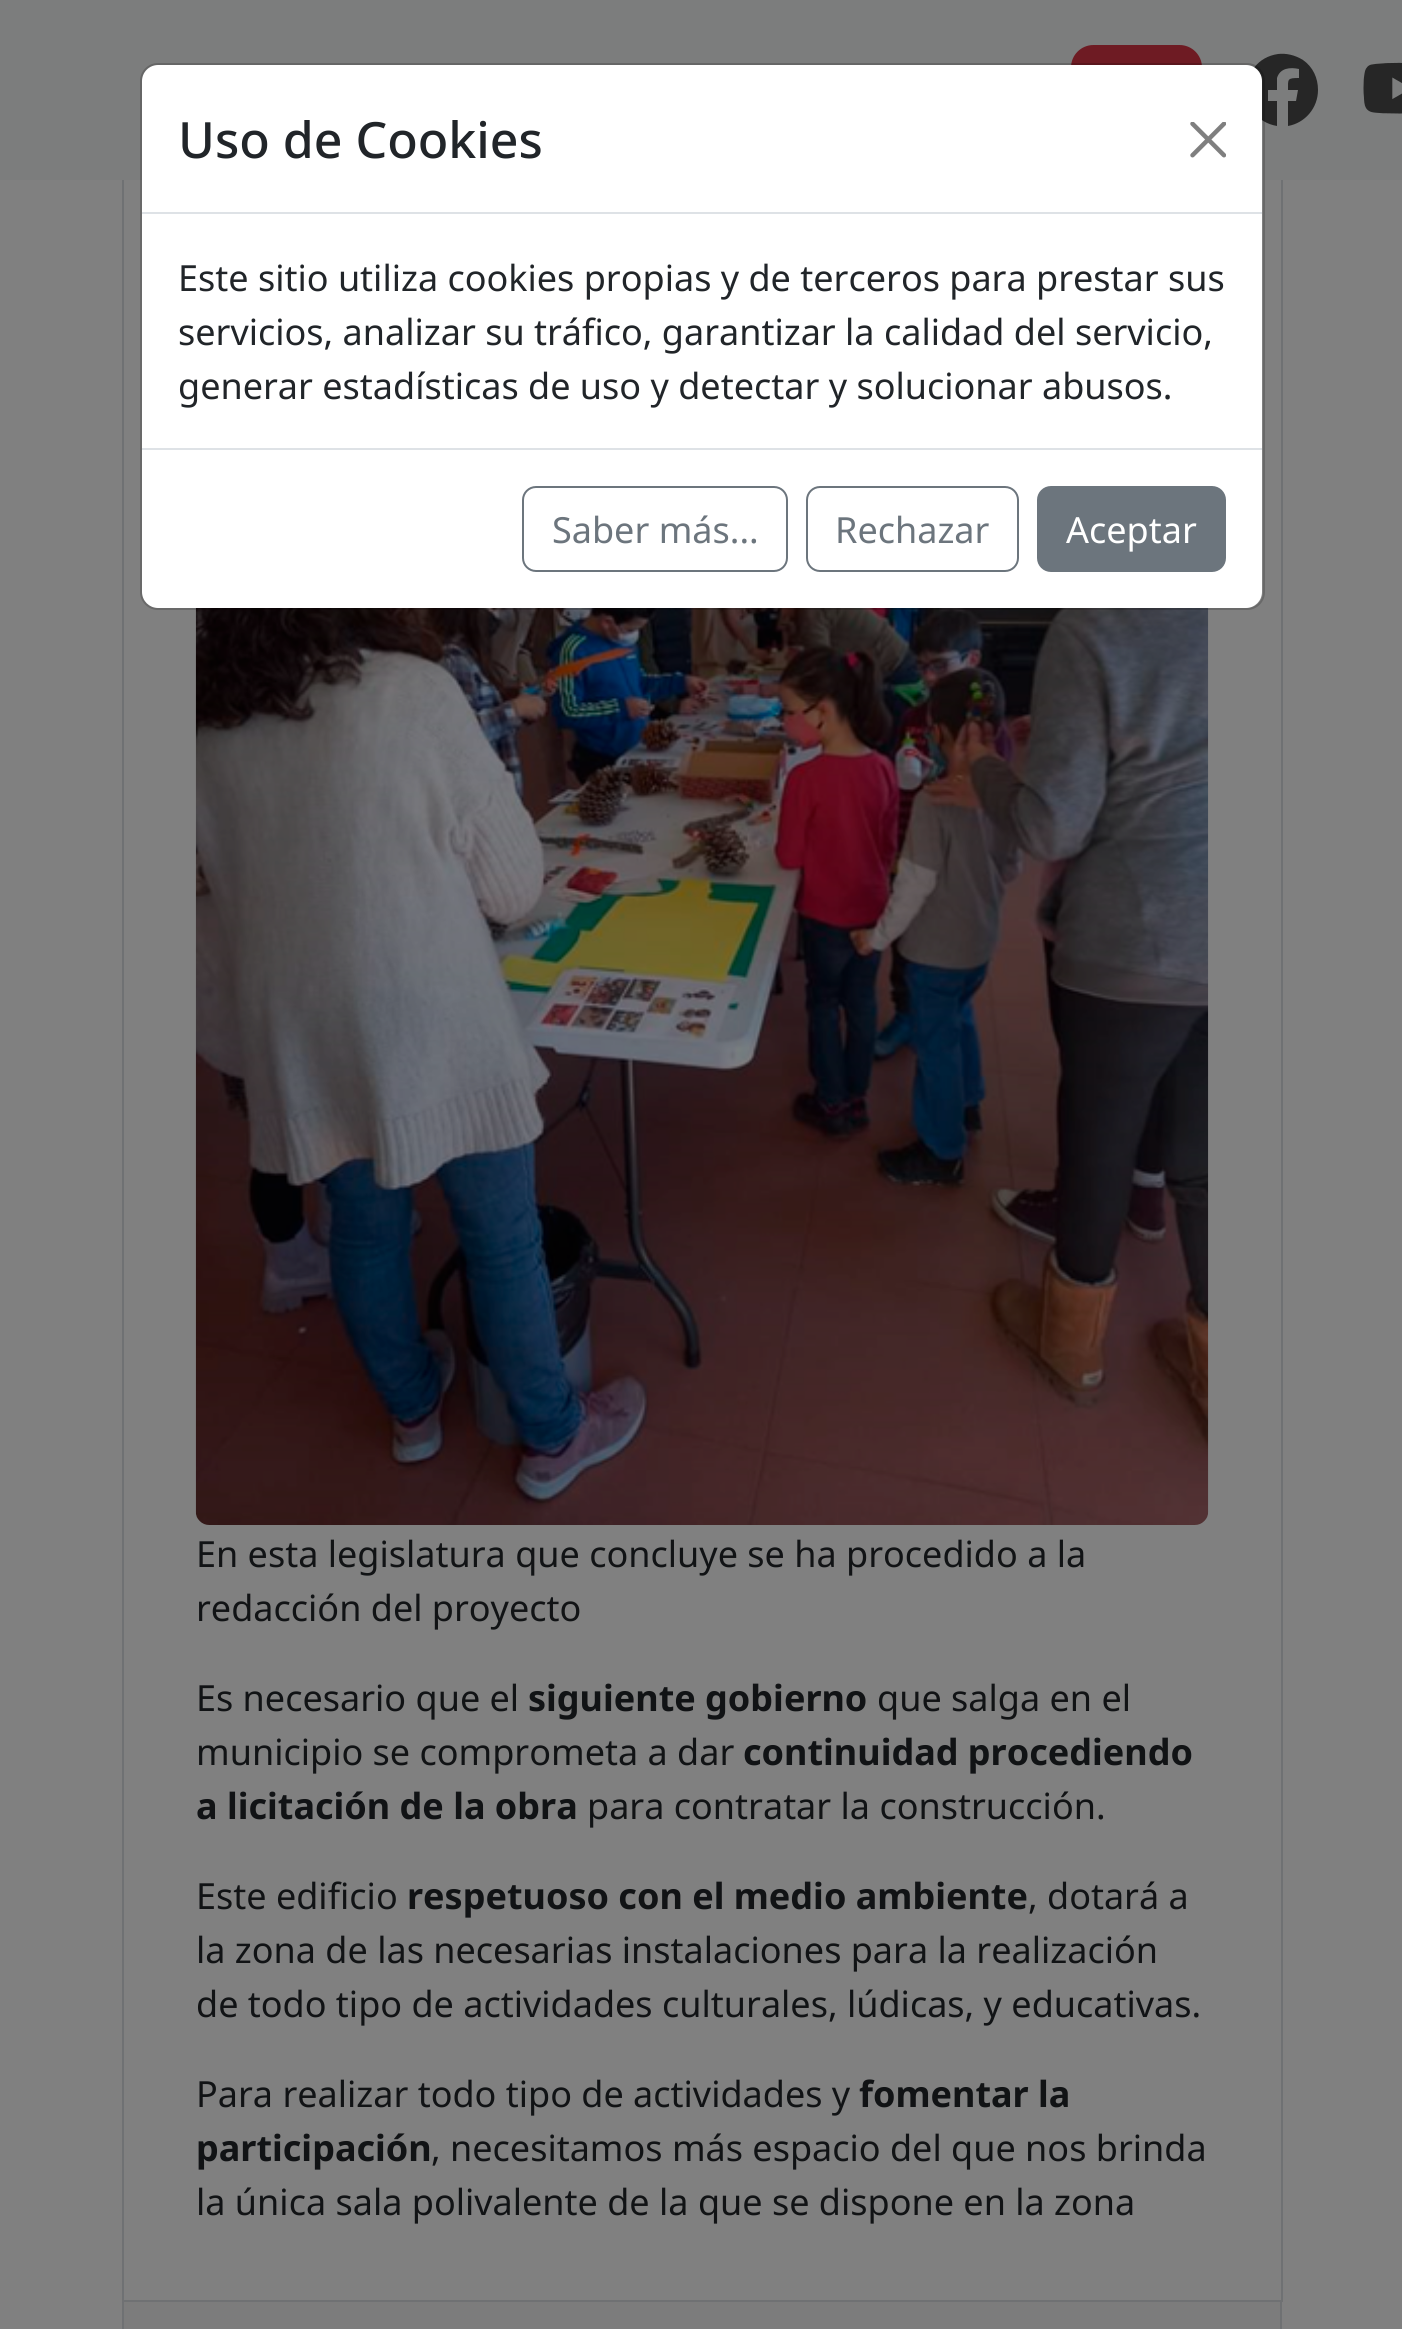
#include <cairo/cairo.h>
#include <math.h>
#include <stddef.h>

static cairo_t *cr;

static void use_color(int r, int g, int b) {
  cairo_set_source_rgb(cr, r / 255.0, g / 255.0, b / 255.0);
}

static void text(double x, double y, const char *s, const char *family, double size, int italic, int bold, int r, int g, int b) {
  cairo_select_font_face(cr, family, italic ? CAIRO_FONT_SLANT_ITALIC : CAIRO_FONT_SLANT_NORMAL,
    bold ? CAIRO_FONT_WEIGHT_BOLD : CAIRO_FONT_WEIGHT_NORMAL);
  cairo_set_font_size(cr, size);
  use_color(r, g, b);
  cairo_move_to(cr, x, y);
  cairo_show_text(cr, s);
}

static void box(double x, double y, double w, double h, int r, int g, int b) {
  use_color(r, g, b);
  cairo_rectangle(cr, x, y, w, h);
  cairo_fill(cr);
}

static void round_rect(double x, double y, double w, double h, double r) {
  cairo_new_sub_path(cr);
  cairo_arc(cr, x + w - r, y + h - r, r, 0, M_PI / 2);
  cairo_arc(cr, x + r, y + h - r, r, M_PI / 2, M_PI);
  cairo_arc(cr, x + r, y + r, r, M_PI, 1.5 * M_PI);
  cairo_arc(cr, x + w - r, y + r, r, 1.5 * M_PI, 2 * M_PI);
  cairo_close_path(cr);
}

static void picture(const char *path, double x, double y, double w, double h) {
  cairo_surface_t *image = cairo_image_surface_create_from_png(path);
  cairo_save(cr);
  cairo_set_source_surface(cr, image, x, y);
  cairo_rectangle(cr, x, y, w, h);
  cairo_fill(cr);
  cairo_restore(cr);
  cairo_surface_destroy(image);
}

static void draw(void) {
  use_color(128, 128, 128);
  cairo_paint(cr);
  cairo_rectangle(cr, 123, 12, 1159, 2289);
  use_color(111, 113, 115);
  cairo_stroke(cr);
  box(0, 0, 1402, 180, 124, 125, 125);
  use_color(110, 27, 35);
  round_rect(1071, 45, 131, 45, 22.5);
  cairo_fill(cr);
  use_color(38, 38, 38);
  cairo_new_path(cr);
  cairo_move_to(cr, 1318, 90);
  cairo_curve_to(cr, 1318, 78, 1313, 67, 1303, 60);
  cairo_curve_to(cr, 1295, 55, 1286, 53, 1278, 54);
  cairo_curve_to(cr, 1237, 60, 1236, 119, 1277, 126);
  cairo_line_to(cr, 1277, 101);
  cairo_line_to(cr, 1268, 101);
  cairo_line_to(cr, 1268, 90);
  cairo_line_to(cr, 1277, 90);
  cairo_line_to(cr, 1277, 78);
  cairo_curve_to(cr, 1280, 68, 1290, 67, 1299, 69);
  cairo_line_to(cr, 1299, 78);
  cairo_curve_to(cr, 1287, 78, 1288, 79, 1288, 90);
  cairo_line_to(cr, 1298, 90);
  cairo_line_to(cr, 1296, 101);
  cairo_line_to(cr, 1288, 101);
  cairo_line_to(cr, 1288, 126);
  cairo_curve_to(cr, 1305, 123, 1318, 108, 1318, 90);
  cairo_close_path(cr);
  cairo_fill(cr);
  picture("img_01.png", 1363, 62, 39, 52);
  use_color(255, 255, 255);
  round_rect(142, 65, 1120, 543, 16);
  cairo_fill(cr);
  picture("img_03.png", 195, 608, 1014, 917);
  round_rect(141, 64, 1123, 545, 17);
  cairo_set_source_rgba(cr, 0, 0, 0, 0.18);
  cairo_stroke(cr);
  box(142, 212, 1120, 2, 222, 226, 230);
  picture("img_02.png", 1190, 122, 36, 36);
  box(142, 448, 1120, 2, 222, 226, 230);
  round_rect(523, 487, 264, 84, 13);
  use_color(108, 117, 125);
  cairo_stroke(cr);
  round_rect(807, 487, 211, 84, 13);
  cairo_stroke(cr);
  round_rect(1038, 487, 187, 84, 13);
  cairo_fill_preserve(cr);
  cairo_stroke(cr);
  box(1280, 2302, 2, 27, 111, 113, 115);
  box(122, 2302, 2, 27, 111, 113, 115);
  box(124, 2302, 1156, 27, 124, 124, 124);
  text(178, 158, "Uso de Cookies", "Noto Sans Medium", 50, 0, 0, 33, 37, 41);
  text(178, 291, "Este sitio utiliza cookies propias y de terceros para prestar sus", "Noto Sans", 36, 0, 0, 33, 37, 41);
  text(178, 345, "servicios, analizar su tráfico, garantizar la calidad del servicio,", "Noto Sans", 36, 0, 0, 33, 37, 41);
  text(178, 399, "generar estadísticas de uso y detectar y solucionar abusos.", "Noto Sans", 36, 0, 0, 33, 37, 41);
  text(552, 543, "Saber más...", "Noto Sans", 36, 0, 0, 108, 117, 125);
  text(835, 543, "Rechazar", "Noto Sans", 36, 0, 0, 108, 117, 125);
  text(1066, 543, "Aceptar", "Noto Sans", 36, 0, 0, 255, 255, 255);
  text(196, 1567, "En esta legislatura que concluye se ha procedido a la", "Noto Sans", 36, 0, 0, 17, 19, 21);
  text(196, 1621, "redacción del proyecto", "Noto Sans", 36, 0, 0, 17, 19, 21);
  text(196, 1711, "Es necesario que el", "Noto Sans", 36, 0, 0, 17, 19, 21);
  text(528, 1711, "siguiente gobierno", "Noto Sans", 36, 0, 1, 17, 19, 21);
  text(877, 1711, "que salga en el", "Noto Sans", 36, 0, 0, 17, 19, 21);
  text(196, 1765, "municipio se comprometa a dar", "Noto Sans", 36, 0, 0, 17, 19, 21);
  text(743, 1765, "continuidad procediendo", "Noto Sans", 36, 0, 1, 17, 19, 21);
  text(196, 1819, "a licitación de la obra", "Noto Sans", 36, 0, 1, 17, 19, 21);
  text(587, 1819, "para contratar la construcción.", "Noto Sans", 36, 0, 0, 17, 19, 21);
  text(196, 1909, "Este edificio", "Noto Sans", 36, 0, 0, 17, 19, 21);
  text(407, 1909, "respetuoso con el medio ambiente", "Noto Sans", 36, 0, 1, 17, 19, 21);
  text(1028, 1909, ", dotará a", "Noto Sans", 36, 0, 0, 17, 19, 21);
  text(196, 1963, "la zona de las necesarias instalaciones para la realización", "Noto Sans", 36, 0, 0, 17, 19, 21);
  text(196, 2017, "de todo tipo de actividades culturales, lúdicas, y educativas.", "Noto Sans", 36, 0, 0, 17, 19, 21);
  text(196, 2107, "Para realizar todo tipo de actividades y", "Noto Sans", 36, 0, 0, 17, 19, 21);
  text(859, 2107, "fomentar la", "Noto Sans", 36, 0, 1, 17, 19, 21);
  text(196, 2161, "participación", "Noto Sans", 36, 0, 1, 17, 19, 21);
  text(431, 2161, ", necesitamos más espacio del que nos brinda", "Noto Sans", 36, 0, 0, 17, 19, 21);
  text(196, 2215, "la única sala polivalente de la que se dispone en la zona", "Noto Sans", 36, 0, 0, 17, 19, 21);
}

int main(void) {
  cairo_surface_t *surface = cairo_image_surface_create(CAIRO_FORMAT_RGB24, 1402, 2329);
  cr = cairo_create(surface);
  cairo_font_options_t *options = cairo_font_options_create();
  cairo_font_options_set_hint_metrics(options, CAIRO_HINT_METRICS_OFF);
  cairo_font_options_set_hint_style(options, CAIRO_HINT_STYLE_NONE);
  cairo_set_font_options(cr, options);
  cairo_set_miter_limit(cr, 4);
  draw();
  cairo_surface_write_to_png(surface, "out.png");
  cairo_font_options_destroy(options);
  cairo_destroy(cr);
  cairo_surface_destroy(surface);
  return 0;
}
